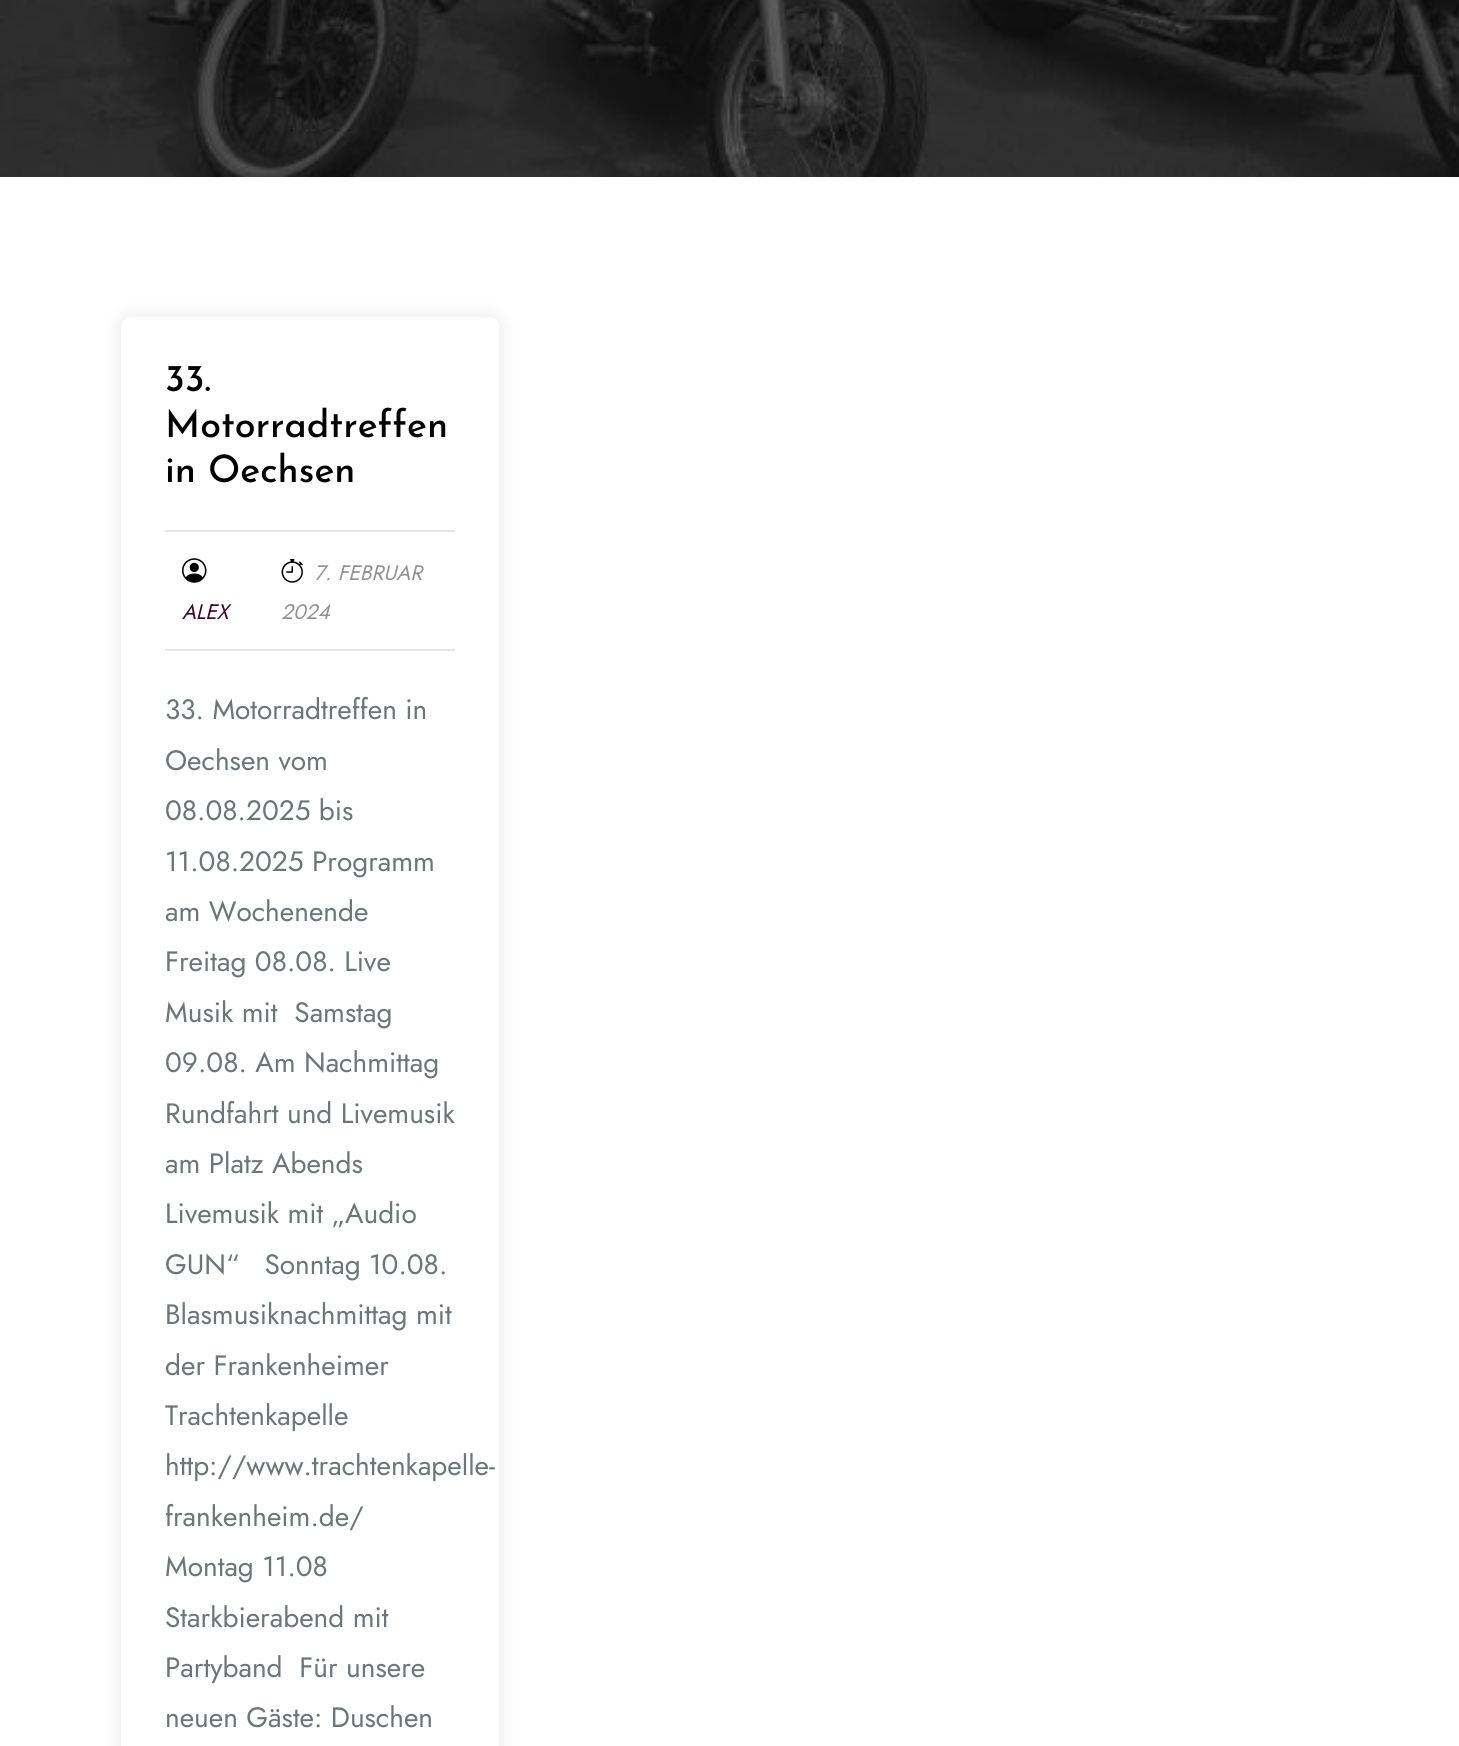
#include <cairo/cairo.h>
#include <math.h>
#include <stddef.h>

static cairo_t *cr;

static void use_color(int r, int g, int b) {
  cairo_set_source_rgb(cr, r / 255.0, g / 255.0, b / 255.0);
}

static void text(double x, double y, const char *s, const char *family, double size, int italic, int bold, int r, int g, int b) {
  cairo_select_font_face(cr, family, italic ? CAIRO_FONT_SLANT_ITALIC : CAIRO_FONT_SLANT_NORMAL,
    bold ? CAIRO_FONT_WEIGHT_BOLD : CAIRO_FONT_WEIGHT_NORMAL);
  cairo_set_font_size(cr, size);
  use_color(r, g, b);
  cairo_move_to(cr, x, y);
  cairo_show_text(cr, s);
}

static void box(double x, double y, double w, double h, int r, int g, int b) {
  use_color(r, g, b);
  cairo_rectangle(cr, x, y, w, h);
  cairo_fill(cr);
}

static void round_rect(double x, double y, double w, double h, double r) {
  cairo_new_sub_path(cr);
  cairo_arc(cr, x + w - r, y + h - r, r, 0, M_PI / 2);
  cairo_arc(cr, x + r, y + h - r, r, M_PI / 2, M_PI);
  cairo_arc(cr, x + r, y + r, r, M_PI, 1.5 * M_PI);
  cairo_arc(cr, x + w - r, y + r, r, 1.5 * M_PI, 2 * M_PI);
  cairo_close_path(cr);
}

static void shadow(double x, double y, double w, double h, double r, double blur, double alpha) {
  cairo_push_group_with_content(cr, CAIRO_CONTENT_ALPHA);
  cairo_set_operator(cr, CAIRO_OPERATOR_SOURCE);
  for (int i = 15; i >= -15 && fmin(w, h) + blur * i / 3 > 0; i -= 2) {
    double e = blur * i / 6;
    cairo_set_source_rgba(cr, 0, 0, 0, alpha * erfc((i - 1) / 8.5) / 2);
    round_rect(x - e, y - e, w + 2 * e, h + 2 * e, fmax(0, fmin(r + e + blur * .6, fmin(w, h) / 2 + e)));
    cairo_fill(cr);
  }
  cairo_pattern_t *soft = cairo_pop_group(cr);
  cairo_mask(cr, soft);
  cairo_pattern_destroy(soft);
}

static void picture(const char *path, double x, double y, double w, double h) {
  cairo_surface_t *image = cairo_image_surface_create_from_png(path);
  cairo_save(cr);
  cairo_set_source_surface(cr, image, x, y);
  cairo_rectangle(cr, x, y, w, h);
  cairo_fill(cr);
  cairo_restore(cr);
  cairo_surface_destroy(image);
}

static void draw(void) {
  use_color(255, 255, 255);
  cairo_paint(cr);
  picture("img_01.png", 0, 0, 1459, 177);
  use_color(0, 0, 0);
  shadow(121, 317, 378, 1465, 9, 9, 0.1);
  use_color(255, 255, 255);
  round_rect(121, 317, 378, 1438, 9);
  cairo_fill(cr);
  box(165, 530, 290, 2, 229, 229, 229);
  box(165, 649, 290, 2, 229, 229, 229);
  picture("img_02.png", 182, 558, 25, 25);
  picture("img_03.png", 281, 559, 22, 24);
  text(165, 391, "33.", "Josefin Sans Medium", 37.75, 0, 0, 0, 0, 0);
  text(165, 437, "Motorradtreffen", "Josefin Sans Medium", 37.75, 0, 0, 0, 0, 0);
  text(165, 482, "in Oechsen", "Josefin Sans Medium", 37.75, 0, 0, 0, 0, 0);
  text(182, 619, "ALEX", "Jost", 21, 1, 0, 73, 0, 48);
  text(314, 580, "7. FEBRUAR", "Jost", 21, 1, 0, 144, 146, 149);
  text(281, 619, "2024", "Jost", 21, 1, 0, 144, 146, 149);
  text(165, 719, "33. Motorradtreffen in", "Jost", 28, 0, 0, 108, 117, 125);
  text(165, 770, "Oechsen vom", "Jost", 28, 0, 0, 108, 117, 125);
  text(165, 820, "08.08.2025 bis", "Jost", 28, 0, 0, 108, 117, 125);
  text(165, 871, "11.08.2025 Programm", "Jost", 28, 0, 0, 108, 117, 125);
  text(165, 921, "am Wochenende", "Jost", 28, 0, 0, 108, 117, 125);
  text(165, 971, "Freitag 08.08. Live", "Jost", 28, 0, 0, 108, 117, 125);
  text(165, 1022, "Musik mit  Samstag", "Jost", 28, 0, 0, 108, 117, 125);
  text(165, 1072, "09.08. Am Nachmittag", "Jost", 28, 0, 0, 108, 117, 125);
  text(165, 1123, "Rundfahrt und Livemusik", "Jost", 28, 0, 0, 108, 117, 125);
  text(165, 1173, "am Platz Abends", "Jost", 28, 0, 0, 108, 117, 125);
  text(165, 1223, "Livemusik mit „Audio", "Jost", 28, 0, 0, 108, 117, 125);
  text(165, 1274, "GUN“   Sonntag 10.08.", "Jost", 28, 0, 0, 108, 117, 125);
  text(165, 1324, "Blasmusiknachmittag mit", "Jost", 28, 0, 0, 108, 117, 125);
  text(165, 1375, "der Frankenheimer", "Jost", 28, 0, 0, 108, 117, 125);
  text(165, 1425, "Trachtenkapelle", "Jost", 28, 0, 0, 108, 117, 125);
  text(165, 1475, "http://www.trachtenkapelle-", "Jost", 28, 0, 0, 108, 117, 125);
  text(165, 1526, "frankenheim.de/", "Jost", 28, 0, 0, 108, 117, 125);
  text(165, 1576, "Montag 11.08", "Jost", 28, 0, 0, 108, 117, 125);
  text(165, 1627, "Starkbierabend mit", "Jost", 28, 0, 0, 108, 117, 125);
  text(165, 1677, "Partyband  Für unsere", "Jost", 28, 0, 0, 108, 117, 125);
  text(165, 1727, "neuen Gäste: Duschen", "Jost", 28, 0, 0, 108, 117, 125);
}

int main(void) {
  cairo_surface_t *surface = cairo_image_surface_create(CAIRO_FORMAT_RGB24, 1459, 1746);
  cr = cairo_create(surface);
  cairo_font_options_t *options = cairo_font_options_create();
  cairo_font_options_set_hint_metrics(options, CAIRO_HINT_METRICS_OFF);
  cairo_font_options_set_hint_style(options, CAIRO_HINT_STYLE_NONE);
  cairo_set_font_options(cr, options);
  cairo_set_miter_limit(cr, 4);
  draw();
  cairo_surface_write_to_png(surface, "out.png");
  cairo_font_options_destroy(options);
  cairo_destroy(cr);
  cairo_surface_destroy(surface);
  return 0;
}
